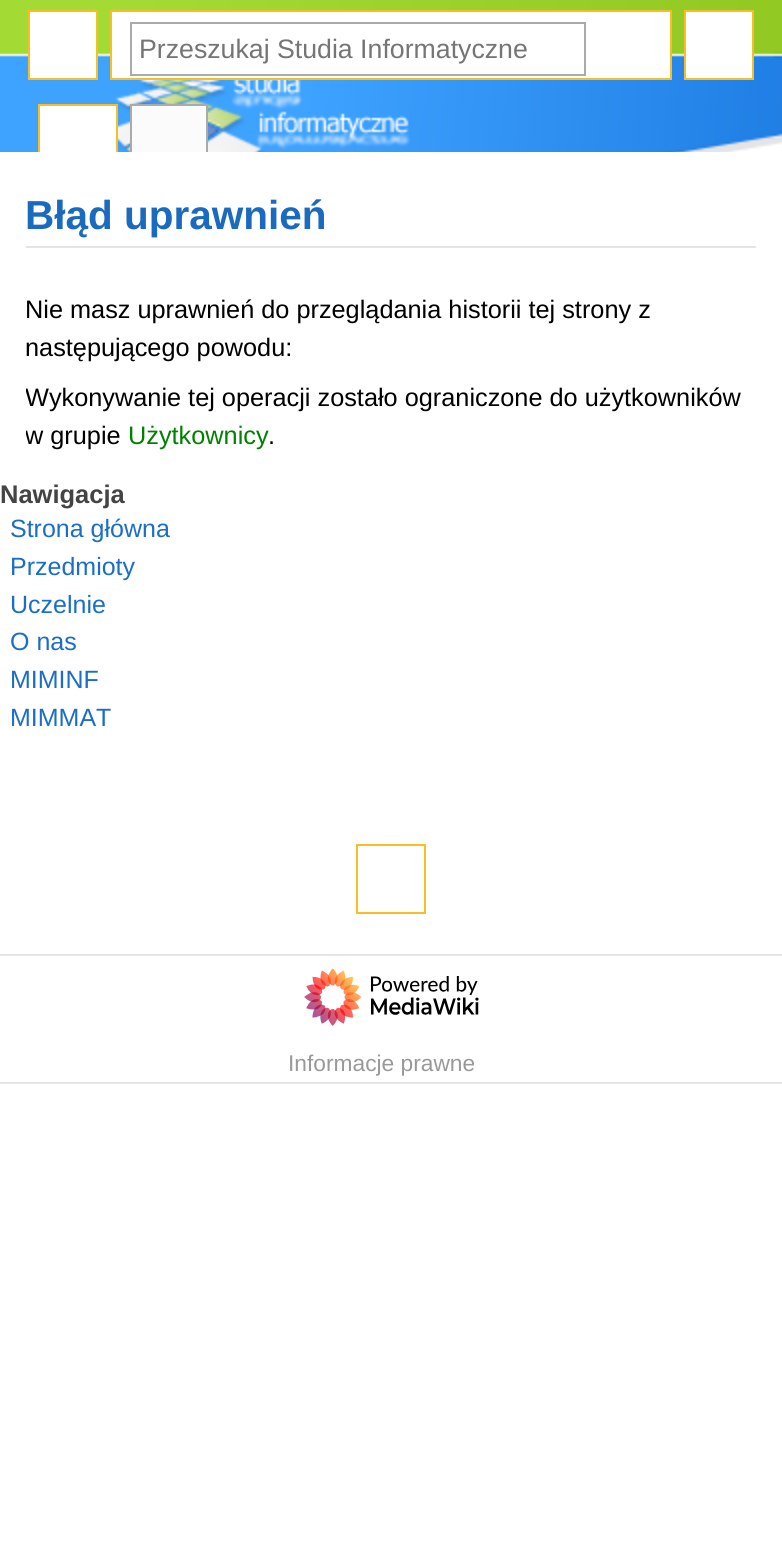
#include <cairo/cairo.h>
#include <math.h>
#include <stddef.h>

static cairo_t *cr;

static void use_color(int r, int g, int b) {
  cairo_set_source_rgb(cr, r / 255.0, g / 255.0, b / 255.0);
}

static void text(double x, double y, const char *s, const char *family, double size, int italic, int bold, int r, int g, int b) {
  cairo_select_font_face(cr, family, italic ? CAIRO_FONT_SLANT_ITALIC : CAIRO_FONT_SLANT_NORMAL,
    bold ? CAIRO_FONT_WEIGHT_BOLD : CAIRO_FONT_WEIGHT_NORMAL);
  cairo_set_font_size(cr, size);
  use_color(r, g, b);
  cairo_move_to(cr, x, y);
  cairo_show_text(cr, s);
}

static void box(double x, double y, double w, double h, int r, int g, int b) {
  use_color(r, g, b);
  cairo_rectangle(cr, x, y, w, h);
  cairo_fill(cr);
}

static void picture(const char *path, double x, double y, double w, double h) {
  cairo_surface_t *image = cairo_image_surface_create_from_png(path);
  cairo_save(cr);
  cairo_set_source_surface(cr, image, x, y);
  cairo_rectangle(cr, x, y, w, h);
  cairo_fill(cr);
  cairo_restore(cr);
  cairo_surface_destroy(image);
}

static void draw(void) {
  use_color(255, 255, 255);
  cairo_paint(cr);
  picture("img_01.png", 0, 0, 782, 152);
  use_color(255, 255, 255);
  cairo_rectangle(cr, 29, 11, 68, 68);
  cairo_fill_preserve(cr);
  use_color(250, 189, 35);
  cairo_stroke(cr);
  use_color(255, 255, 255);
  cairo_rectangle(cr, 685, 11, 68, 68);
  cairo_fill_preserve(cr);
  use_color(250, 189, 35);
  cairo_stroke(cr);
  use_color(255, 255, 255);
  cairo_rectangle(cr, 111, 11, 560, 68);
  cairo_fill_preserve(cr);
  use_color(250, 189, 35);
  cairo_stroke(cr);
  cairo_rectangle(cr, 131, 23, 454, 52);
  use_color(170, 170, 170);
  cairo_stroke(cr);
  box(38, 104, 80, 2, 250, 189, 35);
  box(116, 104, 2, 48, 250, 189, 35);
  box(38, 104, 2, 48, 250, 189, 35);
  box(40, 106, 76, 46, 255, 255, 255);
  box(130, 104, 78, 2, 170, 170, 170);
  box(206, 104, 2, 48, 170, 170, 170);
  box(130, 104, 2, 48, 170, 170, 170);
  box(132, 106, 74, 46, 251, 251, 251);
  cairo_rectangle(cr, 357, 845, 68, 68);
  use_color(250, 189, 35);
  cairo_stroke(cr);
  box(26, 246, 730, 2, 229, 229, 229);
  box(0, 954, 782, 2, 229, 229, 229);
  box(0, 1082, 782, 2, 229, 229, 229);
  picture("img_02.png", 304, 968, 175, 58);
  text(139, 58, "Przeszukaj Studia Informatyczne", "Liberation Sans", 26.7, 0, 0, 117, 117, 117);
  text(0, 503, "Nawigacja", "Liberation Sans", 25.5, 0, 1, 68, 68, 68);
  text(10, 537, "Strona główna", "Liberation Sans", 25, 0, 0, 26, 110, 199);
  text(10, 575, "Przedmioty", "Liberation Sans", 25, 0, 0, 26, 110, 199);
  text(10, 613, "Uczelnie", "Liberation Sans", 25, 0, 0, 26, 110, 199);
  text(10, 650, "O nas", "Liberation Sans", 25, 0, 0, 26, 110, 199);
  text(10, 688, "MIMINF", "Liberation Sans", 25, 0, 0, 26, 110, 199);
  text(10, 726, "MIMMAT", "Liberation Sans", 25, 0, 0, 26, 110, 199);
  text(25, 229, "Błąd uprawnień", "Liberation Sans", 40.5, 0, 1, 26, 106, 191);
  text(25, 318, "Nie masz uprawnień do przeglądania historii tej strony z", "Liberation Sans", 25.3, 0, 0, 0, 0, 0);
  text(25, 356, "następującego powodu:", "Liberation Sans", 25.3, 0, 0, 0, 0, 0);
  cairo_save(cr);
  cairo_rectangle(cr, 26, 282, 730, 174);
  cairo_clip(cr);
  text(25, 406, "Wykonywanie tej operacji zostało ograniczone do użytkowników", "Liberation Sans", 25.3, 0, 0, 0, 0, 0);
  text(25, 444, "w grupie", "Liberation Sans", 25.3, 0, 0, 0, 0, 0);
  cairo_restore(cr);
  text(128, 444, "Użytkownicy", "Liberation Sans", 25.3, 0, 0, 0, 128, 0);
  text(268, 444, ".", "Liberation Sans", 25.3, 0, 0, 0, 0, 0);
  text(288, 1071, "Informacje prawne", "Liberation Sans", 22.75, 0, 0, 153, 153, 153);
}

int main(void) {
  cairo_surface_t *surface = cairo_image_surface_create(CAIRO_FORMAT_RGB24, 782, 1541);
  cr = cairo_create(surface);
  cairo_font_options_t *options = cairo_font_options_create();
  cairo_font_options_set_hint_metrics(options, CAIRO_HINT_METRICS_OFF);
  cairo_font_options_set_hint_style(options, CAIRO_HINT_STYLE_NONE);
  cairo_set_font_options(cr, options);
  cairo_set_miter_limit(cr, 4);
  draw();
  cairo_surface_write_to_png(surface, "out.png");
  cairo_font_options_destroy(options);
  cairo_destroy(cr);
  cairo_surface_destroy(surface);
  return 0;
}
